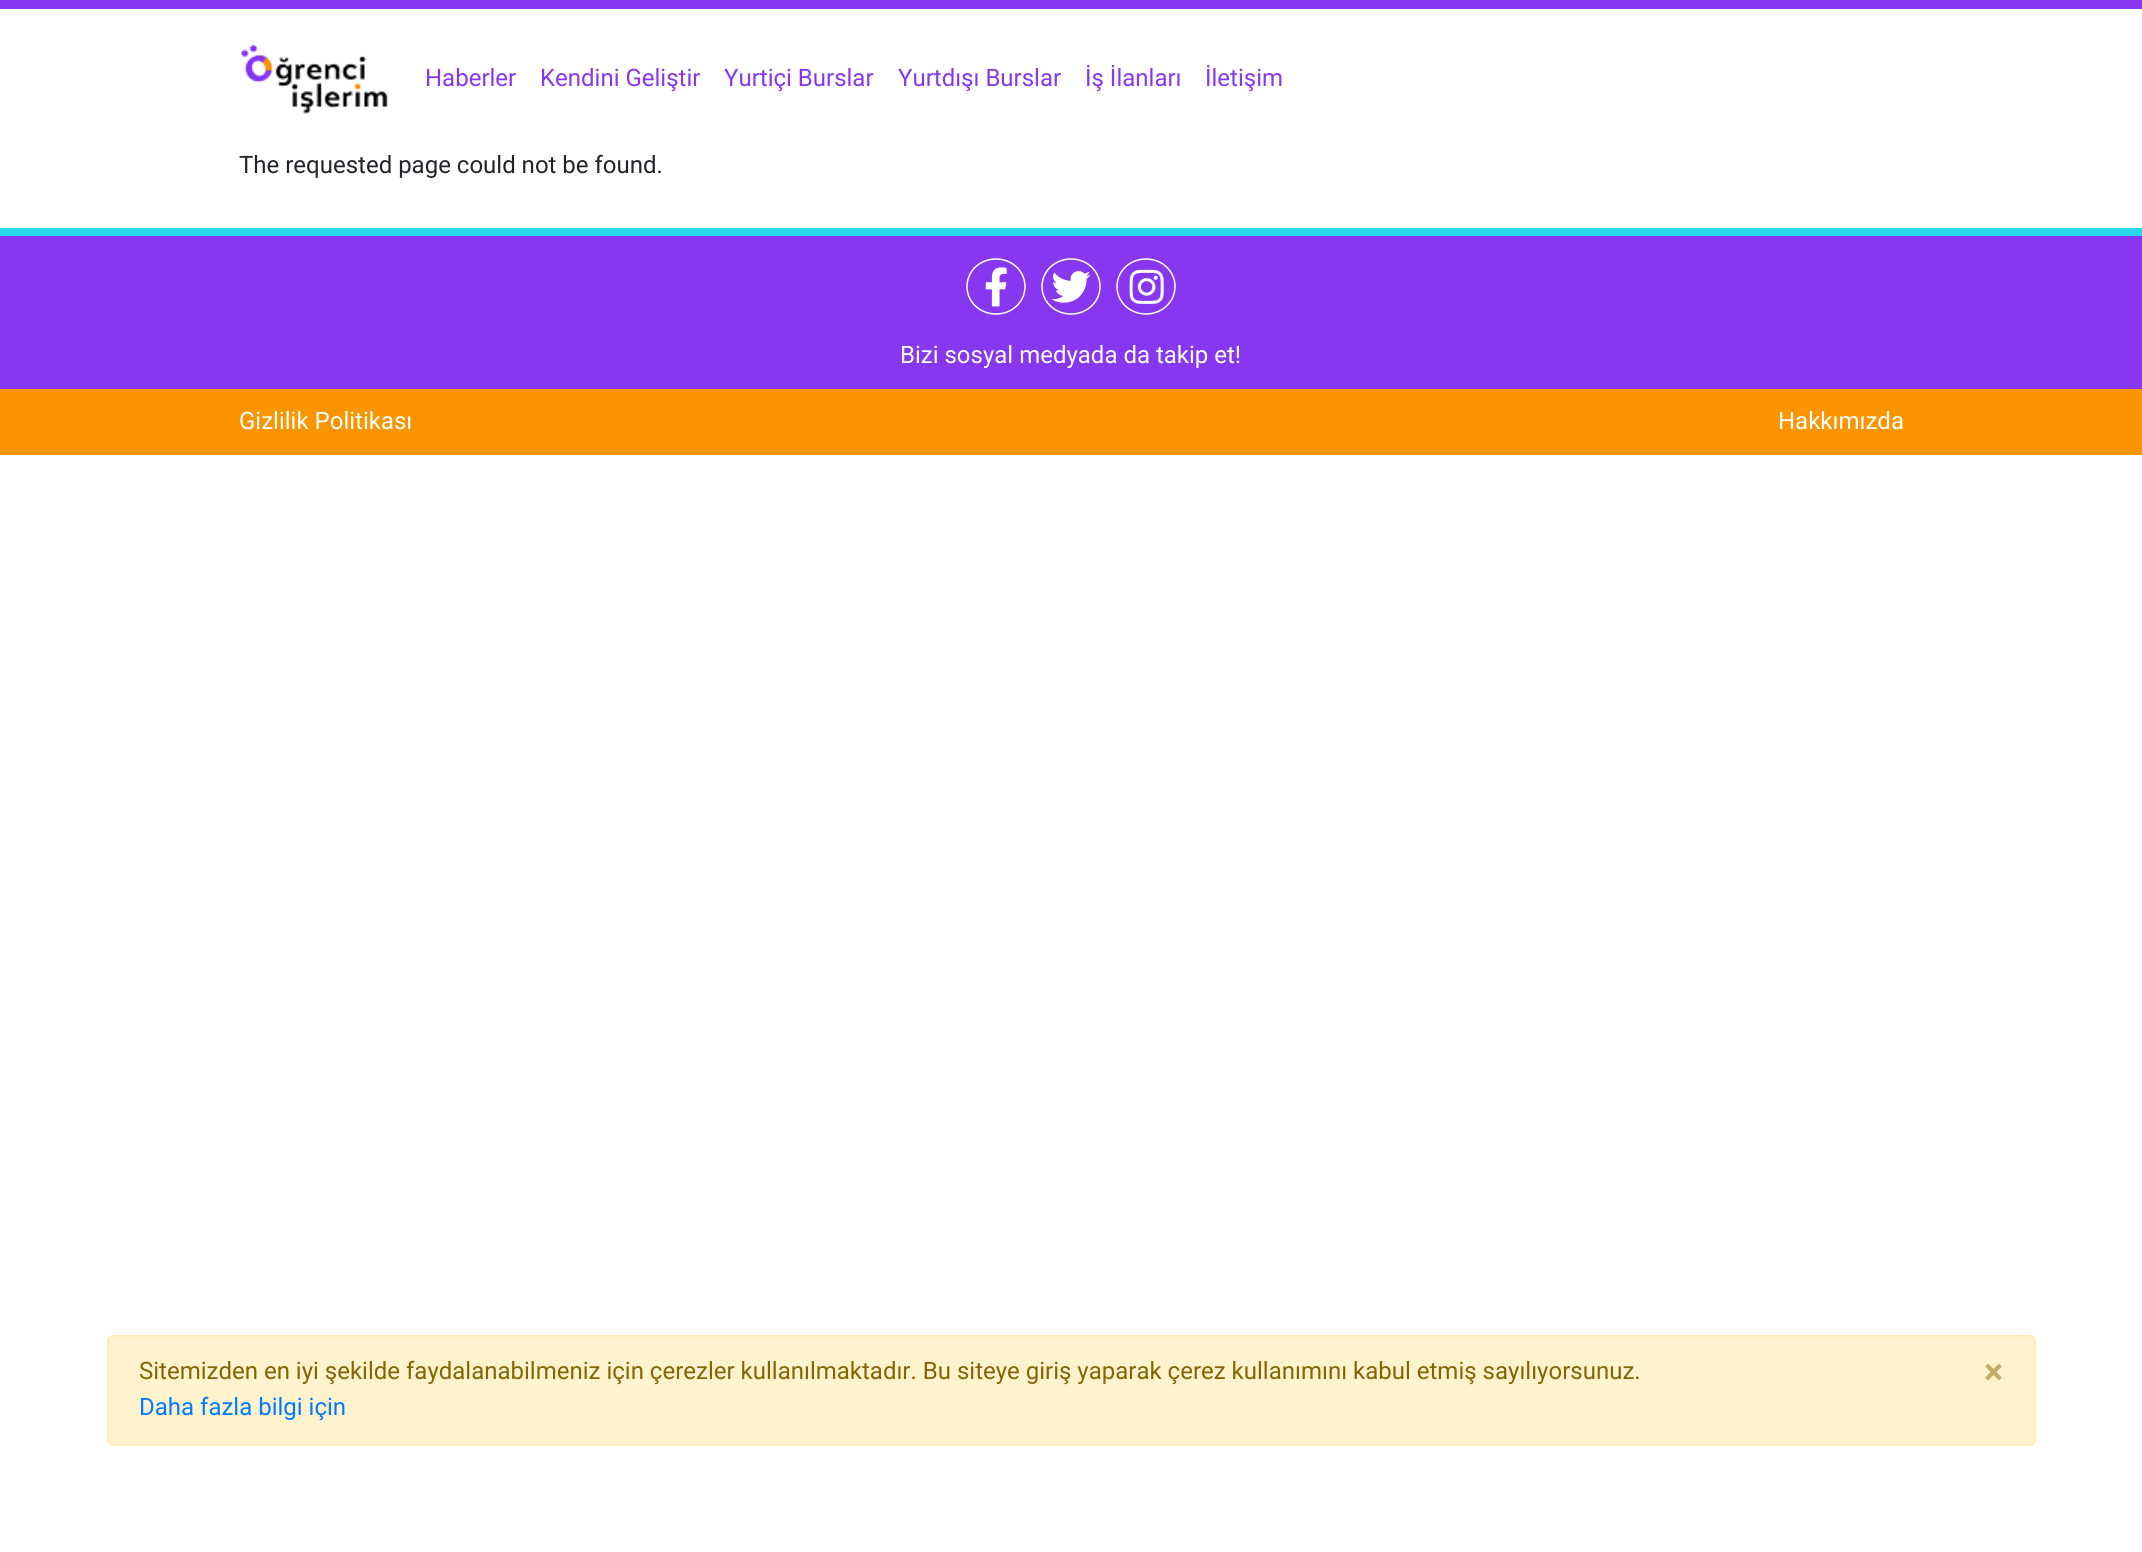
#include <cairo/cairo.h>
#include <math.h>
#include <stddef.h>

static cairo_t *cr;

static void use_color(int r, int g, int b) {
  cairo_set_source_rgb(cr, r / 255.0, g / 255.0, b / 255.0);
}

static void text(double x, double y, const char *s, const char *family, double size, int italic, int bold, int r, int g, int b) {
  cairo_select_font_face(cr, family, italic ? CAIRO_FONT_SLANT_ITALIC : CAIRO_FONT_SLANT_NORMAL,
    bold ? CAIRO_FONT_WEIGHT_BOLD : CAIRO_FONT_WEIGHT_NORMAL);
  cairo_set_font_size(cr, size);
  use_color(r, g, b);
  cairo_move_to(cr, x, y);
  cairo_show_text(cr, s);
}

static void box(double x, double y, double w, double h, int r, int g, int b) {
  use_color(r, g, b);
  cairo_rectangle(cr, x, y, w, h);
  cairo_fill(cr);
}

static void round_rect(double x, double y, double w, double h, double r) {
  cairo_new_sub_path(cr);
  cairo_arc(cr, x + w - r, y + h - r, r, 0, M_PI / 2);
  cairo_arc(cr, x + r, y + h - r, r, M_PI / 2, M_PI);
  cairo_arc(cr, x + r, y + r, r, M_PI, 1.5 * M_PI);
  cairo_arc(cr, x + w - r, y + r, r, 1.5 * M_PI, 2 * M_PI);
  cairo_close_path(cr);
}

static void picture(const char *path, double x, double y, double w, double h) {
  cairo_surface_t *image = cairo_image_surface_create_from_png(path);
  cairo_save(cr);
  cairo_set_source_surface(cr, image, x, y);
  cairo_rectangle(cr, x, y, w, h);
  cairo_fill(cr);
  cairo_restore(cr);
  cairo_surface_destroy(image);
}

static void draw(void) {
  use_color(255, 255, 255);
  cairo_paint(cr);
  box(0, 0, 2142, 9, 135, 55, 239);
  picture("img_01.png", 241, 44, 147, 71);
  box(0, 236, 2142, 153, 135, 55, 239);
  box(0, 228, 2142, 8, 39, 217, 232);
  cairo_new_path(cr);
  cairo_move_to(cr, 996, 259);
  cairo_curve_to(cr, 1012, 259, 1025, 271, 1025, 286.5);
  cairo_curve_to(cr, 1025, 302, 1012, 314, 996, 314);
  cairo_curve_to(cr, 980, 314, 967, 302, 967, 286.5);
  cairo_curve_to(cr, 967, 271, 980, 259, 996, 259);
  cairo_close_path(cr);
  use_color(255, 255, 255);
  cairo_set_line_width(cr, 1.5);
  cairo_stroke(cr);
  picture("img_02.png", 985, 267, 22, 40);
  cairo_new_path(cr);
  cairo_move_to(cr, 1071, 259);
  cairo_curve_to(cr, 1087, 259, 1100, 271, 1100, 286.5);
  cairo_curve_to(cr, 1100, 302, 1087, 314, 1071, 314);
  cairo_curve_to(cr, 1055, 314, 1042, 302, 1042, 286.5);
  cairo_curve_to(cr, 1042, 271, 1055, 259, 1071, 259);
  cairo_close_path(cr);
  cairo_stroke(cr);
  picture("img_03.png", 1051, 271, 40, 32);
  cairo_new_path(cr);
  cairo_move_to(cr, 1146, 259);
  cairo_curve_to(cr, 1162, 259, 1175, 271, 1175, 286.5);
  cairo_curve_to(cr, 1175, 302, 1162, 314, 1146, 314);
  cairo_curve_to(cr, 1130, 314, 1117, 302, 1117, 286.5);
  cairo_curve_to(cr, 1117, 271, 1130, 259, 1146, 259);
  cairo_close_path(cr);
  cairo_stroke(cr);
  picture("img_04.png", 1129, 269, 35, 35);
  box(0, 389, 2142, 66, 250, 149, 0);
  use_color(255, 243, 205);
  round_rect(108, 1336, 1927, 109, 5);
  cairo_fill_preserve(cr);
  use_color(255, 238, 186);
  cairo_set_line_width(cr, 2);
  cairo_stroke(cr);
  text(425, 86, "Haberler", "Roboto", 24, 0, 0, 135, 55, 239);
  text(540, 86, "Kendini Geliştir", "Roboto", 24, 0, 0, 135, 55, 239);
  text(724, 86, "Yurtiçi Burslar", "Roboto", 24, 0, 0, 135, 55, 239);
  text(898, 86, "Yurtdışı Burslar", "Roboto", 24, 0, 0, 135, 55, 239);
  text(1085, 86, "İş İlanları", "Roboto", 24, 0, 0, 135, 55, 239);
  text(1205, 86, "İletişim", "Roboto", 24, 0, 0, 135, 55, 239);
  text(239, 173, "The requested page could not be found.", "Roboto", 24, 0, 0, 33, 37, 41);
  text(900, 363, "Bizi sosyal medyada da takip et!", "Roboto", 24, 0, 0, 255, 255, 255);
  text(239, 429, "Gizlilik Politikası", "Roboto", 24, 0, 0, 255, 255, 255);
  text(1778, 429, "Hakkımızda", "Roboto", 24, 0, 0, 255, 255, 255);
  text(139, 1379, "Sitemizden en iyi şekilde faydalanabilmeniz için çerezler kullanılmaktadır. Bu siteye giriş yaparak çerez kullanımını kabul etmiş sayılıyorsunuz.", "Roboto", 24, 0, 0, 133, 100, 4);
  text(1984, 1384, "×", "Roboto", 36, 0, 1, 194, 172, 105);
  text(139, 1415, "Daha fazla bilgi için", "Roboto", 24, 0, 0, 0, 123, 255);
}

int main(void) {
  cairo_surface_t *surface = cairo_image_surface_create(CAIRO_FORMAT_RGB24, 2142, 1552);
  cr = cairo_create(surface);
  cairo_font_options_t *options = cairo_font_options_create();
  cairo_font_options_set_hint_metrics(options, CAIRO_HINT_METRICS_OFF);
  cairo_font_options_set_hint_style(options, CAIRO_HINT_STYLE_NONE);
  cairo_set_font_options(cr, options);
  cairo_set_miter_limit(cr, 4);
  draw();
  cairo_surface_write_to_png(surface, "out.png");
  cairo_font_options_destroy(options);
  cairo_destroy(cr);
  cairo_surface_destroy(surface);
  return 0;
}
